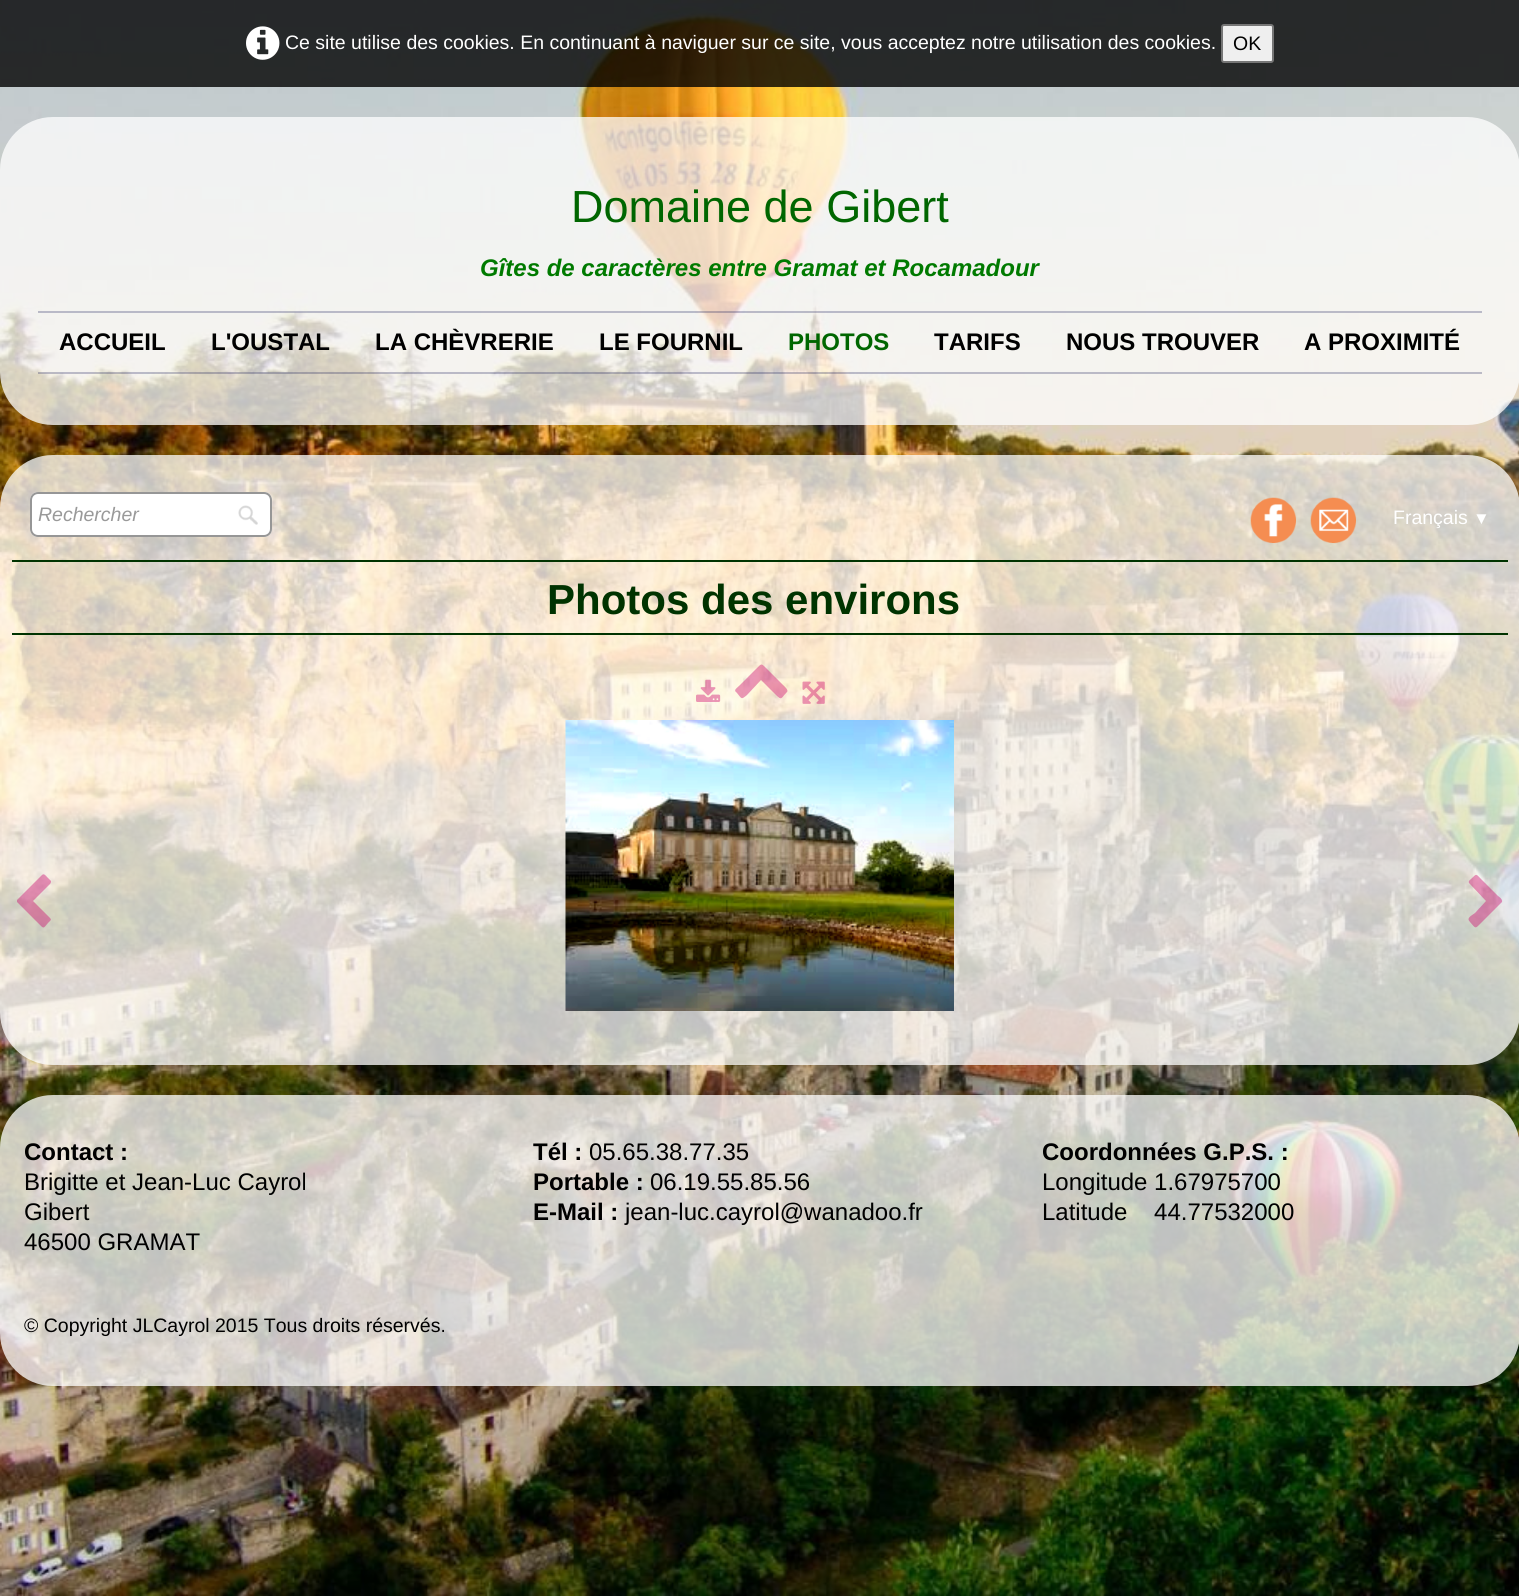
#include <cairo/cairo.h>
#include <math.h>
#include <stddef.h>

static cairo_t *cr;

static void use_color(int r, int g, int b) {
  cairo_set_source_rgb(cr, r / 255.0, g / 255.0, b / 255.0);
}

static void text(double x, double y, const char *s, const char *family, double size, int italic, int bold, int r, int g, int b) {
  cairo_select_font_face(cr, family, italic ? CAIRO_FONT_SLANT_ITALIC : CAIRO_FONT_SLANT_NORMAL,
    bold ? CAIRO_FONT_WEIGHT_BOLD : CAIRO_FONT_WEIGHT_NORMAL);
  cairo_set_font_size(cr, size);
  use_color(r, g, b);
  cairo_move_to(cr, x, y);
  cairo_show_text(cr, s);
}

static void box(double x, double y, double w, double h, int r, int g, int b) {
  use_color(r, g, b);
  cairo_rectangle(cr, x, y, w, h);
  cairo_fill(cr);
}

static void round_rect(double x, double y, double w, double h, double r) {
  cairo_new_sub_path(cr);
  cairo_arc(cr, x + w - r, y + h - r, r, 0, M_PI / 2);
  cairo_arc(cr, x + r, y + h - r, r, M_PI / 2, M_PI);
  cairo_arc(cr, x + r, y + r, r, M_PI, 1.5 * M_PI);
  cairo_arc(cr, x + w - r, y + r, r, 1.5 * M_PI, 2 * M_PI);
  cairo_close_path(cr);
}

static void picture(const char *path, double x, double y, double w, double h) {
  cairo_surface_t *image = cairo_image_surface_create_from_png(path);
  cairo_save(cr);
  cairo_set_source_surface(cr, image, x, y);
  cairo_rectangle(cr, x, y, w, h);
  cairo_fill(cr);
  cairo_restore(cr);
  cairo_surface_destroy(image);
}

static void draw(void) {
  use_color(255, 255, 255);
  cairo_paint(cr);
  picture("img_01.png", 0, 0, 1519, 1596);
  cairo_set_source_rgba(cr, 0, 0, 0, 0.8);
  cairo_rectangle(cr, 0, 0, 1519, 87);
  cairo_fill(cr);
  picture("img_02.png", 246, 26, 34, 34);
  use_color(239, 239, 239);
  round_rect(1222, 25, 51, 37, 2);
  cairo_fill_preserve(cr);
  use_color(118, 118, 118);
  cairo_stroke(cr);
  cairo_set_source_rgba(cr, 1, 1, 1, 0.75);
  round_rect(0, 117, 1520, 308, 53);
  cairo_fill(cr);
  cairo_set_source_rgba(cr, 0.043, 0.047, 0.298, 0.25);
  cairo_rectangle(cr, 38, 311, 1444, 2);
  cairo_fill(cr);
  cairo_rectangle(cr, 38, 372, 1444, 2);
  cairo_fill(cr);
  cairo_set_source_rgba(cr, 1, 1, 1, 0.75);
  round_rect(0, 455, 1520, 610, 53);
  cairo_fill(cr);
  use_color(255, 255, 255);
  round_rect(30, 492, 242, 45, 8);
  cairo_fill(cr);
  picture("img_03.png", 238, 505, 20, 20);
  round_rect(31, 493, 240, 43, 7);
  use_color(150, 150, 150);
  cairo_stroke(cr);
  picture("img_04.png", 1250, 497, 47, 47);
  picture("img_05.png", 1310, 497, 47, 47);
  box(12, 560, 1496, 2, 0, 51, 0);
  box(12, 633, 1496, 2, 0, 51, 0);
  picture("img_06.png", 696, 679, 25, 23);
  cairo_set_source_rgba(cr, 0.8, 0, 0.412, 0.4);
  cairo_new_path(cr);
  cairo_move_to(cr, 787, 692);
  cairo_curve_to(cr, 781, 698, 782, 701, 776, 695);
  cairo_line_to(cr, 761, 680);
  cairo_line_to(cr, 747, 695);
  cairo_curve_to(cr, 741, 700, 742, 699, 737, 693);
  cairo_curve_to(cr, 733, 690, 736, 689, 740, 685);
  cairo_line_to(cr, 756, 669);
  cairo_curve_to(cr, 762, 663, 761, 663, 767, 669);
  cairo_line_to(cr, 783, 685);
  cairo_curve_to(cr, 784, 686, 789, 690, 787, 692);
  cairo_close_path(cr);
  cairo_fill(cr);
  picture("img_07.png", 802, 681, 23, 23);
  cairo_new_path(cr);
  cairo_move_to(cr, 50, 884);
  cairo_line_to(cr, 33, 901);
  cairo_line_to(cr, 47, 915);
  cairo_curve_to(cr, 52, 920, 52, 919, 48, 923);
  cairo_curve_to(cr, 43, 929, 44, 929, 38, 923);
  cairo_line_to(cr, 17, 902);
  cairo_line_to(cr, 17, 900);
  cairo_line_to(cr, 42, 875);
  cairo_curve_to(cr, 44, 873, 46, 876, 47, 877);
  cairo_line_to(cr, 51, 881);
  cairo_curve_to(cr, 51, 882, 51, 883, 50, 884);
  cairo_close_path(cr);
  cairo_fill(cr);
  picture("img_08.png", 565, 720, 389, 291);
  cairo_new_path(cr);
  cairo_move_to(cr, 1502, 902);
  cairo_line_to(cr, 1481, 923);
  cairo_curve_to(cr, 1475, 929, 1476, 929, 1470, 922);
  cairo_curve_to(cr, 1466, 918, 1471, 916, 1475, 913);
  cairo_line_to(cr, 1486, 901);
  cairo_line_to(cr, 1469, 883);
  cairo_curve_to(cr, 1468, 881, 1470, 880, 1471, 879);
  cairo_curve_to(cr, 1477, 873, 1476, 874, 1481, 879);
  cairo_line_to(cr, 1498, 896);
  cairo_curve_to(cr, 1498, 896, 1503, 899, 1502, 902);
  cairo_close_path(cr);
  cairo_fill(cr);
  cairo_set_source_rgba(cr, 1, 1, 1, 0.75);
  round_rect(0, 1095, 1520, 291, 53);
  cairo_fill(cr);
  text(285, 49, "Ce site utilise des cookies. En continuant à naviguer sur ce site, vous acceptez notre utilisation des cookies.", "Liberation Sans", 19.5, 0, 0, 255, 255, 255);
  text(1233, 50, "OK", "Liberation Sans", 19.5, 0, 0, 0, 0, 0);
  text(571, 222, "Domaine de Gibert", "Liberation Sans", 45, 0, 0, 0, 102, 0);
  text(480, 276, "Gîtes de caractères entre Gramat et Rocamadour", "Liberation Sans", 24, 1, 1, 0, 122, 0);
  text(59, 350, "ACCUEIL", "Liberation Sans", 24, 0, 1, 0, 0, 0);
  text(211, 350, "L'OUSTAL", "Liberation Sans", 24, 0, 1, 0, 0, 0);
  text(375, 350, "LA CHÈVRERIE", "Liberation Sans", 24, 0, 1, 0, 0, 0);
  text(599, 350, "LE FOURNIL", "Liberation Sans", 24, 0, 1, 0, 0, 0);
  text(788, 350, "PHOTOS", "Liberation Sans", 24, 0, 1, 0, 102, 0);
  text(934, 350, "TARIFS", "Liberation Sans", 24, 0, 1, 0, 0, 0);
  text(1066, 350, "NOUS TROUVER", "Liberation Sans", 24, 0, 1, 0, 0, 0);
  text(1304, 350, "A PROXIMITÉ", "Liberation Sans", 24, 0, 1, 0, 0, 0);
  text(38, 521, "Rechercher", "Liberation Sans", 19.5, 1, 0, 153, 153, 153);
  text(1393, 524, "Français", "Liberation Sans", 19.5, 0, 0, 255, 255, 255);
  text(1473, 524, "▼", "Liberation Sans", 17, 0, 0, 255, 255, 255);
  text(547, 614, "Photos des environs", "Liberation Sans", 42, 0, 1, 0, 51, 0);
  text(24, 1160, "Contact :", "Liberation Sans", 24, 0, 1, 0, 0, 0);
  text(24, 1190, "Brigitte et Jean-Luc Cayrol", "Liberation Sans", 24, 0, 0, 0, 0, 0);
  text(24, 1220, "Gibert", "Liberation Sans", 24, 0, 0, 0, 0, 0);
  text(24, 1250, "46500 GRAMAT", "Liberation Sans", 24, 0, 0, 0, 0, 0);
  text(533, 1160, "Tél :", "Liberation Sans", 24, 0, 1, 0, 0, 0);
  text(589, 1160, "05.65.38.77.35", "Liberation Sans", 24, 0, 0, 0, 0, 0);
  text(533, 1190, "Portable :", "Liberation Sans", 24, 0, 1, 0, 0, 0);
  text(650, 1190, "06.19.55.85.56", "Liberation Sans", 24, 0, 0, 0, 0, 0);
  text(533, 1220, "E-Mail :", "Liberation Sans", 24, 0, 1, 0, 0, 0);
  text(625, 1220, "jean-luc.cayrol@wanadoo.fr", "Liberation Sans", 24, 0, 0, 0, 0, 0);
  text(1042, 1160, "Coordonnées G.P.S. :", "Liberation Sans", 24, 0, 1, 0, 0, 0);
  text(1042, 1190, "Longitude 1.67975700", "Liberation Sans", 24, 0, 0, 0, 0, 0);
  text(1042, 1220, "Latitude    44.77532000", "Liberation Sans", 24, 0, 0, 0, 0, 0);
  text(24, 1332, "© Copyright JLCayrol 2015 Tous droits réservés.", "Liberation Sans", 19.5, 0, 0, 0, 0, 0);
}

int main(void) {
  cairo_surface_t *surface = cairo_image_surface_create(CAIRO_FORMAT_RGB24, 1519, 1596);
  cr = cairo_create(surface);
  cairo_font_options_t *options = cairo_font_options_create();
  cairo_font_options_set_hint_metrics(options, CAIRO_HINT_METRICS_OFF);
  cairo_font_options_set_hint_style(options, CAIRO_HINT_STYLE_NONE);
  cairo_set_font_options(cr, options);
  cairo_set_miter_limit(cr, 4);
  draw();
  cairo_surface_write_to_png(surface, "out.png");
  cairo_font_options_destroy(options);
  cairo_destroy(cr);
  cairo_surface_destroy(surface);
  return 0;
}
